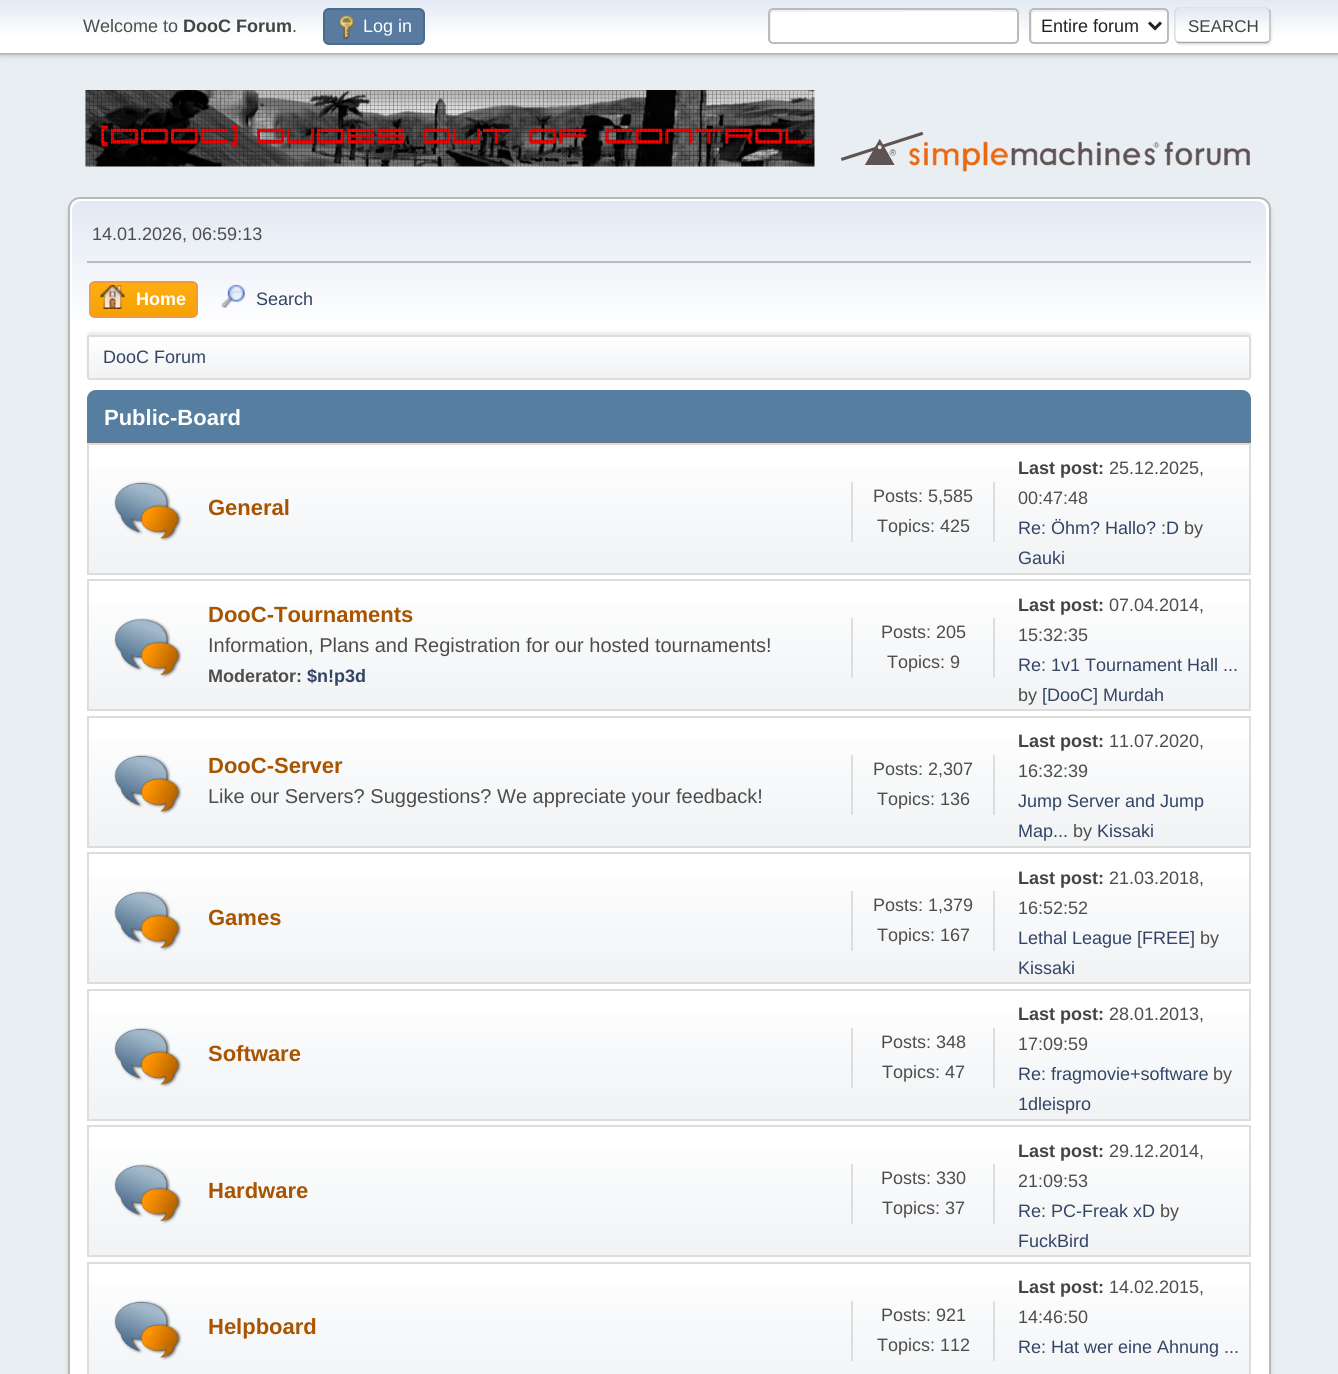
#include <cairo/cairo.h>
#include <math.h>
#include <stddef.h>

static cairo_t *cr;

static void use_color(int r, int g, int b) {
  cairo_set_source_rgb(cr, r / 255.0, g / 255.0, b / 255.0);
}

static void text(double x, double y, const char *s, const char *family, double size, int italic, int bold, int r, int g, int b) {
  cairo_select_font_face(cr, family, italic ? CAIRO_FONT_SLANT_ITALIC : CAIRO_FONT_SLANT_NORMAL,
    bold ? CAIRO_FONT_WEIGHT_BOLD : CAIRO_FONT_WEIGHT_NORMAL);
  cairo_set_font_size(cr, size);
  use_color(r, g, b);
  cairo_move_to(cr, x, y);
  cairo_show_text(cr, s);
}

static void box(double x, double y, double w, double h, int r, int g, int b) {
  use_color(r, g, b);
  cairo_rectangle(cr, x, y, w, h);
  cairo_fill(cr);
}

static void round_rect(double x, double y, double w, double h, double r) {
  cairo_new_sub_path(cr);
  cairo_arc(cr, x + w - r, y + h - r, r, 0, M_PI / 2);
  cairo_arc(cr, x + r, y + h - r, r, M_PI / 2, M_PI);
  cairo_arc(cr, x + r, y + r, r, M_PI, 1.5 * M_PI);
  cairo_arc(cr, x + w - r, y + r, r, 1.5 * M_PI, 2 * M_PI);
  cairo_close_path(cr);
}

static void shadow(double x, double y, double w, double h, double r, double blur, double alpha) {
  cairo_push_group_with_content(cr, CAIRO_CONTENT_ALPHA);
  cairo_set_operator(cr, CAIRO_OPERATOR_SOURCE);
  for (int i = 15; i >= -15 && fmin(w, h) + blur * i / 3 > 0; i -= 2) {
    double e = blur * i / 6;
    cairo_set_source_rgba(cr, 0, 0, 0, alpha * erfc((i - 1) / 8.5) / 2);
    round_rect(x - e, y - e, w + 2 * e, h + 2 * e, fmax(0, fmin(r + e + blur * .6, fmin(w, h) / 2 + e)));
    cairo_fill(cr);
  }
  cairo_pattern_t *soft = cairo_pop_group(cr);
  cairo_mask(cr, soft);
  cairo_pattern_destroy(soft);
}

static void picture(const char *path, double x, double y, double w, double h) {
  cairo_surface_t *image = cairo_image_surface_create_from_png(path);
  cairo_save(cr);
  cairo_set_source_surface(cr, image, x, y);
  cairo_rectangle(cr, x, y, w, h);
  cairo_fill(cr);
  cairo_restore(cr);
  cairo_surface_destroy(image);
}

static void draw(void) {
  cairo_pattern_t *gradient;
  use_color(233, 238, 242);
  cairo_paint(cr);
  use_color(0, 0, 0);
  shadow(0, 2, 1338, 54, 0, 3, 0.16);
  gradient = cairo_pattern_create_linear(669, 0, 669, 53);
  cairo_pattern_add_color_stop_rgba(gradient, 0, 0.886, 0.914, 0.953, 1);
  cairo_pattern_add_color_stop_rgba(gradient, 0.7, 1, 1, 1, 1);
  cairo_set_source(cr, gradient);
  cairo_pattern_destroy(gradient);
  cairo_rectangle(cr, 0, 0, 1338, 53);
  cairo_fill(cr);
  box(0, 53, 1338, 2, 187, 187, 187);
  use_color(89, 123, 159);
  round_rect(324, 9, 100, 35, 5);
  cairo_fill_preserve(cr);
  use_color(74, 107, 140);
  cairo_stroke(cr);
  picture("img_01.png", 338, 15, 17, 24);
  use_color(255, 255, 255);
  round_rect(768, 8, 251, 36, 5);
  cairo_fill(cr);
  use_color(236, 241, 248);
  cairo_new_path(cr);
  cairo_move_to(cr, 774, 12);
  cairo_curve_to(cr, 796, 12, 1016, 11, 1017, 12);
  cairo_curve_to(cr, 1017, 10, 1016, 9, 1014, 9);
  cairo_line_to(cr, 773, 9);
  cairo_curve_to(cr, 771, 9, 770, 10, 770, 12);
  cairo_line_to(cr, 770, 39);
  cairo_curve_to(cr, 770, 40, 770, 41, 771, 41);
  cairo_line_to(cr, 771, 15);
  cairo_curve_to(cr, 771, 13, 772, 12, 774, 12);
  cairo_close_path(cr);
  cairo_fill(cr);
  round_rect(769, 9, 249, 34, 4);
  use_color(187, 187, 187);
  cairo_stroke(cr);
  use_color(255, 255, 255);
  round_rect(1029, 8, 140, 36, 5);
  cairo_fill(cr);
  use_color(236, 241, 248);
  cairo_new_path(cr);
  cairo_move_to(cr, 1035, 12);
  cairo_curve_to(cr, 1047, 12, 1166, 11, 1167, 12);
  cairo_curve_to(cr, 1167, 10, 1166, 9, 1164, 9);
  cairo_line_to(cr, 1034, 9);
  cairo_curve_to(cr, 1032, 9, 1031, 10, 1031, 12);
  cairo_line_to(cr, 1031, 39);
  cairo_curve_to(cr, 1031, 40, 1031, 41, 1032, 41);
  cairo_line_to(cr, 1032, 15);
  cairo_curve_to(cr, 1032, 13, 1033, 12, 1035, 12);
  cairo_close_path(cr);
  cairo_fill(cr);
  round_rect(1030, 9, 138, 34, 4);
  use_color(187, 187, 187);
  cairo_stroke(cr);
  cairo_new_path(cr);
  cairo_move_to(cr, 1149, 22.5);
  cairo_line_to(cr, 1155, 28.5);
  cairo_line_to(cr, 1161, 22.5);
  use_color(34, 34, 34);
  cairo_set_line_width(cr, 3);
  cairo_stroke(cr);
  use_color(221, 221, 221);
  shadow(1176, 9, 96, 36, 5, 1, 0.57);
  cairo_save(cr);
  round_rect(1175, 8, 96, 36, 5);
  cairo_clip(cr);
  gradient = cairo_pattern_create_linear(1223, -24, 1223, 9);
  cairo_pattern_add_color_stop_rgba(gradient, 0, 0.886, 0.914, 0.953, 1);
  cairo_pattern_add_color_stop_rgba(gradient, 0.7, 1, 1, 1, 1);
  cairo_set_source(cr, gradient);
  cairo_pattern_destroy(gradient);
  cairo_rectangle(cr, 1175, 8, 96, 1);
  cairo_fill(cr);
  gradient = cairo_pattern_create_linear(1223, 9, 1223, 42);
  cairo_pattern_add_color_stop_rgba(gradient, 0, 0.886, 0.914, 0.953, 1);
  cairo_pattern_add_color_stop_rgba(gradient, 0.7, 1, 1, 1, 1);
  cairo_set_source(cr, gradient);
  cairo_pattern_destroy(gradient);
  cairo_rectangle(cr, 1175, 9, 96, 33);
  cairo_fill(cr);
  gradient = cairo_pattern_create_linear(1223, 42, 1223, 75);
  cairo_pattern_add_color_stop_rgba(gradient, 0, 0.886, 0.914, 0.953, 1);
  cairo_pattern_add_color_stop_rgba(gradient, 0.7, 1, 1, 1, 1);
  cairo_set_source(cr, gradient);
  cairo_pattern_destroy(gradient);
  cairo_rectangle(cr, 1175, 42, 96, 2);
  cairo_fill(cr);
  cairo_restore(cr);
  cairo_new_path(cr);
  cairo_move_to(cr, 1268.5, 9.5);
  cairo_curve_to(cr, 1269.5, 10, 1270, 11, 1270, 12);
  cairo_line_to(cr, 1270, 39);
  cairo_curve_to(cr, 1270, 40, 1269.5, 41, 1268.5, 41.5);
  use_color(187, 187, 187);
  cairo_set_line_width(cr, 1.5);
  cairo_stroke(cr);
  cairo_new_path(cr);
  cairo_move_to(cr, 1268.5, 41.5);
  cairo_line_to(cr, 1266.5, 42.5);
  cairo_line_to(cr, 1178.5, 42.5);
  cairo_line_to(cr, 1176.5, 41.5);
  use_color(170, 170, 170);
  cairo_stroke(cr);
  cairo_new_path(cr);
  cairo_move_to(cr, 1176.5, 41.5);
  cairo_curve_to(cr, 1174, 39.5, 1175, 28.5, 1175, 25.5);
  cairo_curve_to(cr, 1175, 5, 1172, 8, 1193.5, 8);
  cairo_line_to(cr, 1266, 8);
  cairo_line_to(cr, 1268.5, 9.5);
  use_color(221, 221, 221);
  cairo_stroke(cr);
  picture("img_02.png", 85, 90, 730, 77);
  picture("img_03.png", 840, 131, 410, 41);
  use_color(0, 0, 0);
  shadow(68, 200, 1203, 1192, 12, 2, 0.14);
  use_color(255, 255, 255);
  round_rect(69, 198, 1201, 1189, 11);
  cairo_fill_preserve(cr);
  use_color(184, 184, 184);
  cairo_set_line_width(cr, 2);
  cairo_stroke(cr);
  gradient = cairo_pattern_create_linear(669, 201, 669, 383);
  cairo_pattern_add_color_stop_rgba(gradient, 0, 0.886, 0.914, 0.953, 1);
  cairo_pattern_add_color_stop_rgba(gradient, 0.7, 1, 1, 1, 1);
  cairo_set_source(cr, gradient);
  cairo_pattern_destroy(gradient);
  cairo_new_path(cr);
  cairo_move_to(cr, 81, 201);
  cairo_line_to(cr, 1257, 201);
  cairo_curve_to(cr, 1262, 201, 1266, 205, 1266, 210);
  cairo_line_to(cr, 1266, 383);
  cairo_line_to(cr, 72, 383);
  cairo_line_to(cr, 72, 210);
  cairo_curve_to(cr, 72, 205, 76, 201, 81, 201);
  cairo_close_path(cr);
  cairo_fill(cr);
  box(87, 261, 1164, 2, 187, 187, 187);
  cairo_save(cr);
  round_rect(89, 281, 109, 37, 6);
  cairo_clip(cr);
  gradient = cairo_pattern_create_linear(143, 282, 143, 317);
  cairo_pattern_add_color_stop_rgba(gradient, 0, 1, 0.682, 0.078, 1);
  cairo_pattern_add_color_stop_rgba(gradient, 1, 0.961, 0.631, 0, 1);
  cairo_set_source(cr, gradient);
  cairo_pattern_destroy(gradient);
  cairo_rectangle(cr, 89, 282, 109, 35);
  cairo_fill(cr);
  cairo_restore(cr);
  round_rect(90, 282, 107, 35, 5);
  use_color(244, 154, 58);
  cairo_stroke(cr);
  picture("img_04.png", 100, 285, 25, 24);
  picture("img_05.png", 221, 285, 24, 23);
  use_color(0, 0, 0);
  shadow(87, 332, 1164, 45, 3, 1.5, 0.08);
  cairo_save(cr);
  round_rect(87, 335, 1164, 45, 3);
  cairo_clip(cr);
  gradient = cairo_pattern_create_linear(669, 336, 669, 378);
  cairo_pattern_add_color_stop_rgba(gradient, 0, 1, 1, 1, 1);
  cairo_pattern_add_color_stop_rgba(gradient, 0.95, 0.945, 0.953, 0.961, 1);
  cairo_set_source(cr, gradient);
  cairo_pattern_destroy(gradient);
  cairo_rectangle(cr, 87, 336, 1164, 42);
  cairo_fill(cr);
  cairo_restore(cr);
  round_rect(88, 336, 1162, 43, 2);
  use_color(221, 221, 221);
  cairo_stroke(cr);
  use_color(85, 126, 160);
  cairo_new_path(cr);
  cairo_move_to(cr, 96, 390);
  cairo_line_to(cr, 1242, 390);
  cairo_curve_to(cr, 1247, 390, 1251, 394, 1251, 399);
  cairo_line_to(cr, 1251, 443);
  cairo_line_to(cr, 87, 443);
  cairo_line_to(cr, 87, 399);
  cairo_curve_to(cr, 87, 394, 91, 390, 96, 390);
  cairo_close_path(cr);
  cairo_fill(cr);
  box(87, 441, 1164, 2, 119, 119, 119);
  gradient = cairo_pattern_create_linear(669, 444, 669, 573);
  cairo_pattern_add_color_stop_rgba(gradient, 0, 1, 1, 1, 1);
  cairo_pattern_add_color_stop_rgba(gradient, 0.95, 0.945, 0.953, 0.961, 1);
  cairo_set_source(cr, gradient);
  cairo_pattern_destroy(gradient);
  cairo_rectangle(cr, 89, 466, 1160, 107);
  cairo_fill(cr);
  cairo_rectangle(cr, 88, 444, 1162, 130);
  use_color(221, 221, 221);
  cairo_stroke(cr);
  picture("img_06.png", 114, 481, 68, 60);
  box(993, 482, 2, 60, 221, 221, 221);
  box(851, 482, 2, 60, 221, 221, 221);
  gradient = cairo_pattern_create_linear(669, 580, 669, 710);
  cairo_pattern_add_color_stop_rgba(gradient, 0, 1, 1, 1, 1);
  cairo_pattern_add_color_stop_rgba(gradient, 0.95, 0.945, 0.953, 0.961, 1);
  cairo_set_source(cr, gradient);
  cairo_pattern_destroy(gradient);
  cairo_rectangle(cr, 89, 602, 1160, 107);
  cairo_fill(cr);
  cairo_rectangle(cr, 88, 580, 1162, 130);
  use_color(221, 221, 221);
  cairo_stroke(cr);
  picture("img_07.png", 114, 618, 68, 60);
  box(993, 618, 2, 60, 221, 221, 221);
  box(851, 618, 2, 60, 221, 221, 221);
  gradient = cairo_pattern_create_linear(669, 717, 669, 846);
  cairo_pattern_add_color_stop_rgba(gradient, 0, 1, 1, 1, 1);
  cairo_pattern_add_color_stop_rgba(gradient, 0.95, 0.945, 0.953, 0.961, 1);
  cairo_set_source(cr, gradient);
  cairo_pattern_destroy(gradient);
  cairo_rectangle(cr, 89, 739, 1160, 107);
  cairo_fill(cr);
  cairo_rectangle(cr, 88, 717, 1162, 130);
  use_color(221, 221, 221);
  cairo_stroke(cr);
  picture("img_06.png", 114, 754, 68, 60);
  box(993, 755, 2, 60, 221, 221, 221);
  box(851, 755, 2, 60, 221, 221, 221);
  gradient = cairo_pattern_create_linear(669, 854, 669, 983);
  cairo_pattern_add_color_stop_rgba(gradient, 0, 1, 1, 1, 1);
  cairo_pattern_add_color_stop_rgba(gradient, 0.95, 0.945, 0.953, 0.961, 1);
  cairo_set_source(cr, gradient);
  cairo_pattern_destroy(gradient);
  cairo_rectangle(cr, 89, 876, 1160, 106);
  cairo_fill(cr);
  cairo_rectangle(cr, 88, 853, 1162, 130);
  use_color(221, 221, 221);
  cairo_stroke(cr);
  picture("img_08.png", 114, 891, 68, 60);
  box(993, 891, 2, 60, 221, 221, 221);
  box(851, 891, 2, 60, 221, 221, 221);
  gradient = cairo_pattern_create_linear(669, 990, 669, 1119);
  cairo_pattern_add_color_stop_rgba(gradient, 0, 1, 1, 1, 1);
  cairo_pattern_add_color_stop_rgba(gradient, 0.95, 0.945, 0.953, 0.961, 1);
  cairo_set_source(cr, gradient);
  cairo_pattern_destroy(gradient);
  cairo_rectangle(cr, 89, 1012, 1160, 107);
  cairo_fill(cr);
  cairo_rectangle(cr, 88, 990, 1162, 130);
  use_color(221, 221, 221);
  cairo_stroke(cr);
  picture("img_06.png", 114, 1027, 68, 60);
  box(993, 1028, 2, 60, 221, 221, 221);
  box(851, 1028, 2, 60, 221, 221, 221);
  gradient = cairo_pattern_create_linear(669, 1127, 669, 1256);
  cairo_pattern_add_color_stop_rgba(gradient, 0, 1, 1, 1, 1);
  cairo_pattern_add_color_stop_rgba(gradient, 0.95, 0.945, 0.953, 0.961, 1);
  cairo_set_source(cr, gradient);
  cairo_pattern_destroy(gradient);
  cairo_rectangle(cr, 89, 1149, 1160, 106);
  cairo_fill(cr);
  cairo_rectangle(cr, 88, 1126, 1162, 130);
  use_color(221, 221, 221);
  cairo_stroke(cr);
  picture("img_08.png", 114, 1164, 68, 60);
  box(993, 1164, 2, 60, 221, 221, 221);
  box(851, 1164, 2, 60, 221, 221, 221);
  gradient = cairo_pattern_create_linear(669, 1263, 669, 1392);
  cairo_pattern_add_color_stop_rgba(gradient, 0, 1, 1, 1, 1);
  cairo_pattern_add_color_stop_rgba(gradient, 0.95, 0.945, 0.953, 0.961, 1);
  cairo_set_source(cr, gradient);
  cairo_pattern_destroy(gradient);
  cairo_rectangle(cr, 89, 1285, 1160, 89);
  cairo_fill(cr);
  cairo_rectangle(cr, 88, 1263, 1162, 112);
  use_color(221, 221, 221);
  cairo_stroke(cr);
  picture("img_06.png", 114, 1300, 68, 60);
  box(993, 1301, 2, 60, 221, 221, 221);
  box(851, 1301, 2, 60, 221, 221, 221);
  text(83, 32, "Welcome to", "Liberation Sans", 18, 0, 0, 77, 77, 77);
  text(183, 32, "DooC Forum", "Liberation Sans", 18, 0, 1, 68, 68, 68);
  text(292, 32, ".", "Liberation Sans", 18, 0, 0, 77, 77, 77);
  text(363, 32, "Log in", "Liberation Sans", 18, 0, 0, 255, 255, 255);
  text(1041, 32, "Entire forum", "Liberation Sans", 18, 0, 0, 34, 34, 34);
  text(1188, 32, "SEARCH", "Liberation Sans", 17, 0, 0, 68, 68, 68);
  text(92, 240, "14.01.2026, 06:59:13", "Liberation Sans", 18, 0, 0, 77, 77, 77);
  text(136, 305, "Home", "Liberation Sans", 18, 0, 1, 255, 255, 255);
  text(256, 305, "Search", "Liberation Sans", 18, 0, 0, 51, 68, 102);
  text(103, 363, "DooC Forum", "Liberation Sans", 18, 0, 0, 51, 68, 102);
  text(104, 425, "Public-Board", "Liberation Sans", 22, 0, 1, 255, 255, 255);
  cairo_save(cr);
  cairo_rectangle(cr, 209, 486, 627, 47);
  cairo_clip(cr);
  text(208, 515, "General", "Liberation Sans", 22, 0, 1, 168, 84, 0);
  cairo_restore(cr);
  text(873, 502, "Posts: 5,585", "Liberation Sans", 18, 0, 0, 77, 77, 77);
  text(877, 532, "Topics: 425", "Liberation Sans", 18, 0, 0, 77, 77, 77);
  text(1018, 474, "Last post:", "Liberation Sans", 18, 0, 1, 68, 68, 68);
  text(1109, 474, "25.12.2025,", "Liberation Sans", 18, 0, 0, 77, 77, 77);
  text(1018, 504, "00:47:48", "Liberation Sans", 18, 0, 0, 77, 77, 77);
  text(1018, 534, "Re: Öhm? Hallo? :D", "Liberation Sans", 18, 0, 0, 51, 68, 102);
  text(1184, 534, "by", "Liberation Sans", 18, 0, 0, 77, 77, 77);
  text(1018, 564, "Gauki", "Liberation Sans", 18, 0, 0, 51, 68, 102);
  text(208, 622, "DooC-Tournaments", "Liberation Sans", 22, 0, 1, 168, 84, 0);
  text(208, 652, "Information, Plans and Registration for our hosted tournaments!", "Liberation Sans", 20, 0, 0, 77, 77, 77);
  text(208, 682, "Moderator:", "Liberation Sans", 18, 0, 1, 77, 77, 77);
  text(307, 682, "$n!p3d", "Liberation Sans", 18, 0, 1, 51, 68, 102);
  text(881, 638, "Posts: 205", "Liberation Sans", 18, 0, 0, 77, 77, 77);
  text(887, 668, "Topics: 9", "Liberation Sans", 18, 0, 0, 77, 77, 77);
  text(1018, 611, "Last post:", "Liberation Sans", 18, 0, 1, 68, 68, 68);
  text(1109, 611, "07.04.2014,", "Liberation Sans", 18, 0, 0, 77, 77, 77);
  text(1018, 641, "15:32:35", "Liberation Sans", 18, 0, 0, 77, 77, 77);
  text(1018, 671, "Re: 1v1 Tournament Hall ...", "Liberation Sans", 18, 0, 0, 51, 68, 102);
  text(1018, 701, "by", "Liberation Sans", 18, 0, 0, 77, 77, 77);
  text(1042, 701, "[DooC] Murdah", "Liberation Sans", 18, 0, 0, 51, 68, 102);
  text(208, 773, "DooC-Server", "Liberation Sans", 22, 0, 1, 168, 84, 0);
  text(208, 803, "Like our Servers? Suggestions? We appreciate your feedback!", "Liberation Sans", 20, 0, 0, 77, 77, 77);
  text(873, 775, "Posts: 2,307", "Liberation Sans", 18, 0, 0, 77, 77, 77);
  text(877, 805, "Topics: 136", "Liberation Sans", 18, 0, 0, 77, 77, 77);
  text(1018, 747, "Last post:", "Liberation Sans", 18, 0, 1, 68, 68, 68);
  text(1109, 747, "11.07.2020,", "Liberation Sans", 18, 0, 0, 77, 77, 77);
  text(1018, 777, "16:32:39", "Liberation Sans", 18, 0, 0, 77, 77, 77);
  text(1018, 807, "Jump Server and Jump", "Liberation Sans", 18, 0, 0, 51, 68, 102);
  text(1018, 837, "Map...", "Liberation Sans", 18, 0, 0, 51, 68, 102);
  text(1073, 837, "by", "Liberation Sans", 18, 0, 0, 77, 77, 77);
  text(1097, 837, "Kissaki", "Liberation Sans", 18, 0, 0, 51, 68, 102);
  cairo_save(cr);
  cairo_rectangle(cr, 209, 896, 627, 46);
  cairo_clip(cr);
  text(208, 925, "Games", "Liberation Sans", 22, 0, 1, 168, 84, 0);
  cairo_restore(cr);
  text(873, 911, "Posts: 1,379", "Liberation Sans", 18, 0, 0, 77, 77, 77);
  text(877, 941, "Topics: 167", "Liberation Sans", 18, 0, 0, 77, 77, 77);
  text(1018, 884, "Last post:", "Liberation Sans", 18, 0, 1, 68, 68, 68);
  text(1109, 884, "21.03.2018,", "Liberation Sans", 18, 0, 0, 77, 77, 77);
  text(1018, 914, "16:52:52", "Liberation Sans", 18, 0, 0, 77, 77, 77);
  text(1018, 944, "Lethal League [FREE]", "Liberation Sans", 18, 0, 0, 51, 68, 102);
  text(1200, 944, "by", "Liberation Sans", 18, 0, 0, 77, 77, 77);
  text(1018, 974, "Kissaki", "Liberation Sans", 18, 0, 0, 51, 68, 102);
  text(208, 1061, "Software", "Liberation Sans", 22, 0, 1, 168, 84, 0);
  text(881, 1048, "Posts: 348", "Liberation Sans", 18, 0, 0, 77, 77, 77);
  text(882, 1078, "Topics: 47", "Liberation Sans", 18, 0, 0, 77, 77, 77);
  text(1018, 1020, "Last post:", "Liberation Sans", 18, 0, 1, 68, 68, 68);
  text(1109, 1020, "28.01.2013,", "Liberation Sans", 18, 0, 0, 77, 77, 77);
  text(1018, 1050, "17:09:59", "Liberation Sans", 18, 0, 0, 77, 77, 77);
  text(1018, 1080, "Re: fragmovie+software", "Liberation Sans", 18, 0, 0, 51, 68, 102);
  text(1213, 1080, "by", "Liberation Sans", 18, 0, 0, 77, 77, 77);
  text(1018, 1110, "1dleispro", "Liberation Sans", 18, 0, 0, 51, 68, 102);
  text(208, 1198, "Hardware", "Liberation Sans", 22, 0, 1, 168, 84, 0);
  text(881, 1184, "Posts: 330", "Liberation Sans", 18, 0, 0, 77, 77, 77);
  text(882, 1214, "Topics: 37", "Liberation Sans", 18, 0, 0, 77, 77, 77);
  text(1018, 1157, "Last post:", "Liberation Sans", 18, 0, 1, 68, 68, 68);
  text(1109, 1157, "29.12.2014,", "Liberation Sans", 18, 0, 0, 77, 77, 77);
  text(1018, 1187, "21:09:53", "Liberation Sans", 18, 0, 0, 77, 77, 77);
  text(1018, 1217, "Re: PC-Freak xD", "Liberation Sans", 18, 0, 0, 51, 68, 102);
  text(1160, 1217, "by", "Liberation Sans", 18, 0, 0, 77, 77, 77);
  text(1018, 1247, "FuckBird", "Liberation Sans", 18, 0, 0, 51, 68, 102);
  text(208, 1334, "Helpboard", "Liberation Sans", 22, 0, 1, 168, 84, 0);
  text(881, 1321, "Posts: 921", "Liberation Sans", 18, 0, 0, 77, 77, 77);
  text(877, 1351, "Topics: 112", "Liberation Sans", 18, 0, 0, 77, 77, 77);
  text(1018, 1293, "Last post:", "Liberation Sans", 18, 0, 1, 68, 68, 68);
  text(1109, 1293, "14.02.2015,", "Liberation Sans", 18, 0, 0, 77, 77, 77);
  text(1018, 1323, "14:46:50", "Liberation Sans", 18, 0, 0, 77, 77, 77);
  text(1018, 1353, "Re: Hat wer eine Ahnung ...", "Liberation Sans", 18, 0, 0, 51, 68, 102);
}

int main(void) {
  cairo_surface_t *surface = cairo_image_surface_create(CAIRO_FORMAT_RGB24, 1338, 1374);
  cr = cairo_create(surface);
  cairo_font_options_t *options = cairo_font_options_create();
  cairo_font_options_set_hint_metrics(options, CAIRO_HINT_METRICS_OFF);
  cairo_font_options_set_hint_style(options, CAIRO_HINT_STYLE_NONE);
  cairo_set_font_options(cr, options);
  cairo_set_miter_limit(cr, 4);
  draw();
  cairo_surface_write_to_png(surface, "out.png");
  cairo_font_options_destroy(options);
  cairo_destroy(cr);
  cairo_surface_destroy(surface);
  return 0;
}
